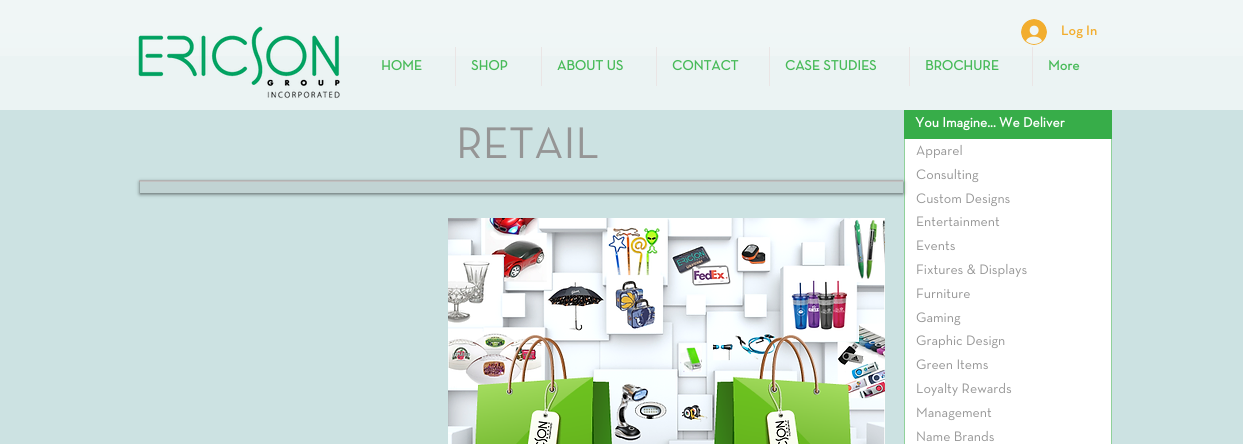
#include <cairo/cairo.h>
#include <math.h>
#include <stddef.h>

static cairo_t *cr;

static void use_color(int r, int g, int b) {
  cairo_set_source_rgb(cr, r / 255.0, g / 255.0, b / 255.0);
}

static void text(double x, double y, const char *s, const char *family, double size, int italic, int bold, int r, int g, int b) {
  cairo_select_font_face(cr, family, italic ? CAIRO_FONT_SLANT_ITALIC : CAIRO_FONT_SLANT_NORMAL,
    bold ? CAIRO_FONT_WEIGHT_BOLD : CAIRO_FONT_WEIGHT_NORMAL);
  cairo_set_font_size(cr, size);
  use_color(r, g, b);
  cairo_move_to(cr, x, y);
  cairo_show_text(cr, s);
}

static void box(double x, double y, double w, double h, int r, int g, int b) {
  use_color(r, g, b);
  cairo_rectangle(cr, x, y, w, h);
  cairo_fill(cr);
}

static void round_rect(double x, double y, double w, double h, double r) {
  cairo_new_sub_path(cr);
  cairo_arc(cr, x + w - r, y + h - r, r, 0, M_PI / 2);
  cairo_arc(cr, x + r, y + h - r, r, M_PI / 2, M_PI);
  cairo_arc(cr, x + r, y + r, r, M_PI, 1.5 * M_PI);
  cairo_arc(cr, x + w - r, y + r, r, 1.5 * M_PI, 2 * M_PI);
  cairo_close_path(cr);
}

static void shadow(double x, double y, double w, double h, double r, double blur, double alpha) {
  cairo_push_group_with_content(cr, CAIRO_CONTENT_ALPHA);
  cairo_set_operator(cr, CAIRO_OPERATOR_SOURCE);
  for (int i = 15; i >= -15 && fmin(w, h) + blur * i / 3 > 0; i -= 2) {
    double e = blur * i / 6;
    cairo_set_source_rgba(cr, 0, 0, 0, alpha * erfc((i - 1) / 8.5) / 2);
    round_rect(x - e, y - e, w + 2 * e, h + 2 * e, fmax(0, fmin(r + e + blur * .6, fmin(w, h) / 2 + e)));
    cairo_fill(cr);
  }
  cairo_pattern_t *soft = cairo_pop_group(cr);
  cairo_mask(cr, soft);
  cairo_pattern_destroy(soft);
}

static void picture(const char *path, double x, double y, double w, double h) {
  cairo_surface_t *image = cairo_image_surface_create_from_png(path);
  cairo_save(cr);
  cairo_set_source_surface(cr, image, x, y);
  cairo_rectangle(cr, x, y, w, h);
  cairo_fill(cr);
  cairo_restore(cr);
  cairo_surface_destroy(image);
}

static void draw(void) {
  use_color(204, 226, 226);
  cairo_paint(cr);
  box(0, 0, 1243, 110, 235, 243, 243);
  picture("img_01.png", 0, 0, 1243, 56);
  picture("img_02.png", 138, 26, 202, 73);
  box(455, 47, 1, 39, 234, 229, 229);
  box(541, 47, 1, 39, 234, 229, 229);
  box(656, 47, 1, 39, 234, 229, 229);
  box(769, 47, 1, 39, 234, 229, 229);
  box(909, 47, 1, 39, 234, 229, 229);
  box(1032, 47, 1, 39, 234, 229, 229);
  picture("img_03.png", 1021, 19, 26, 26);
  box(905, 139, 206, 305, 255, 255, 255);
  cairo_rectangle(cr, 904.5, 110.5, 207, 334);
  use_color(144, 209, 154);
  cairo_set_line_width(cr, 1);
  cairo_stroke(cr);
  box(904, 110, 208, 29, 55, 173, 73);
  box(139, 180, 764, 2, 204, 204, 204);
  box(140, 181, 763, 1, 193, 193, 193);
  box(140, 182, 763, 11, 193, 211, 211);
  cairo_save(cr);
  cairo_set_fill_rule(cr, CAIRO_FILL_RULE_EVEN_ODD);
  cairo_new_path(cr);
  cairo_move_to(cr, 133, 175);
  cairo_line_to(cr, 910, 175);
  cairo_line_to(cr, 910, 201);
  cairo_line_to(cr, 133, 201);
  cairo_close_path(cr);
  cairo_move_to(cr, 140, 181);
  cairo_line_to(cr, 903, 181);
  cairo_line_to(cr, 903, 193);
  cairo_line_to(cr, 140, 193);
  cairo_close_path(cr);
  cairo_clip(cr);
  use_color(0, 0, 0);
  shadow(140, 182, 763, 12, 0, 2, 0.6);
  cairo_restore(cr);
  picture("img_04.png", 448, 218, 437, 226);
  text(381, 70, "HOME", "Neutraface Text", 14, 0, 1, 71, 186, 88);
  text(471, 70, "SHOP", "Neutraface Text", 14, 0, 1, 71, 186, 88);
  text(557, 70, "ABOUT US", "Neutraface Text", 14, 0, 1, 71, 186, 88);
  text(672, 70, "CONTACT", "Neutraface Text", 14, 0, 1, 71, 186, 88);
  text(785, 70, "CASE STUDIES", "Neutraface Text", 14, 0, 1, 71, 186, 88);
  text(925, 70, "BROCHURE", "Neutraface Text", 14, 0, 1, 71, 186, 88);
  text(1048, 70, "More", "Neutraface Text", 14, 0, 1, 71, 186, 88);
  text(1061, 35, "Log In", "Neutraface Text SemiBold", 14, 0, 0, 242, 173, 46);
  text(456, 158, "RETAIL", "Neutraface Text", 45, 0, 0, 149, 149, 149);
  text(915, 127, "You Imagine... We Deliver", "Neutraface Text", 14, 0, 1, 255, 255, 255);
  text(916, 155, "Apparel", "Neutraface Text", 14, 0, 0, 149, 149, 149);
  text(916, 179, "Consulting", "Neutraface Text", 14, 0, 0, 149, 149, 149);
  text(916, 203, "Custom Designs", "Neutraface Text", 14, 0, 0, 149, 149, 149);
  text(916, 226, "Entertainment", "Neutraface Text", 14, 0, 0, 149, 149, 149);
  text(916, 250, "Events", "Neutraface Text", 14, 0, 0, 149, 149, 149);
  text(916, 274, "Fixtures & Displays", "Neutraface Text", 14, 0, 0, 149, 149, 149);
  text(916, 298, "Furniture", "Neutraface Text", 14, 0, 0, 149, 149, 149);
  text(916, 322, "Gaming", "Neutraface Text", 14, 0, 0, 149, 149, 149);
  text(916, 345, "Graphic Design", "Neutraface Text", 14, 0, 0, 149, 149, 149);
  text(916, 369, "Green Items", "Neutraface Text", 14, 0, 0, 149, 149, 149);
  text(916, 393, "Loyalty Rewards", "Neutraface Text", 14, 0, 0, 149, 149, 149);
  text(916, 417, "Management", "Neutraface Text", 14, 0, 0, 149, 149, 149);
  text(916, 441, "Name Brands", "Neutraface Text", 14, 0, 0, 149, 149, 149);
}

int main(void) {
  cairo_surface_t *surface = cairo_image_surface_create(CAIRO_FORMAT_RGB24, 1243, 444);
  cr = cairo_create(surface);
  cairo_font_options_t *options = cairo_font_options_create();
  cairo_font_options_set_hint_metrics(options, CAIRO_HINT_METRICS_OFF);
  cairo_font_options_set_hint_style(options, CAIRO_HINT_STYLE_NONE);
  cairo_set_font_options(cr, options);
  cairo_set_miter_limit(cr, 4);
  draw();
  cairo_surface_write_to_png(surface, "out.png");
  cairo_font_options_destroy(options);
  cairo_destroy(cr);
  cairo_surface_destroy(surface);
  return 0;
}
